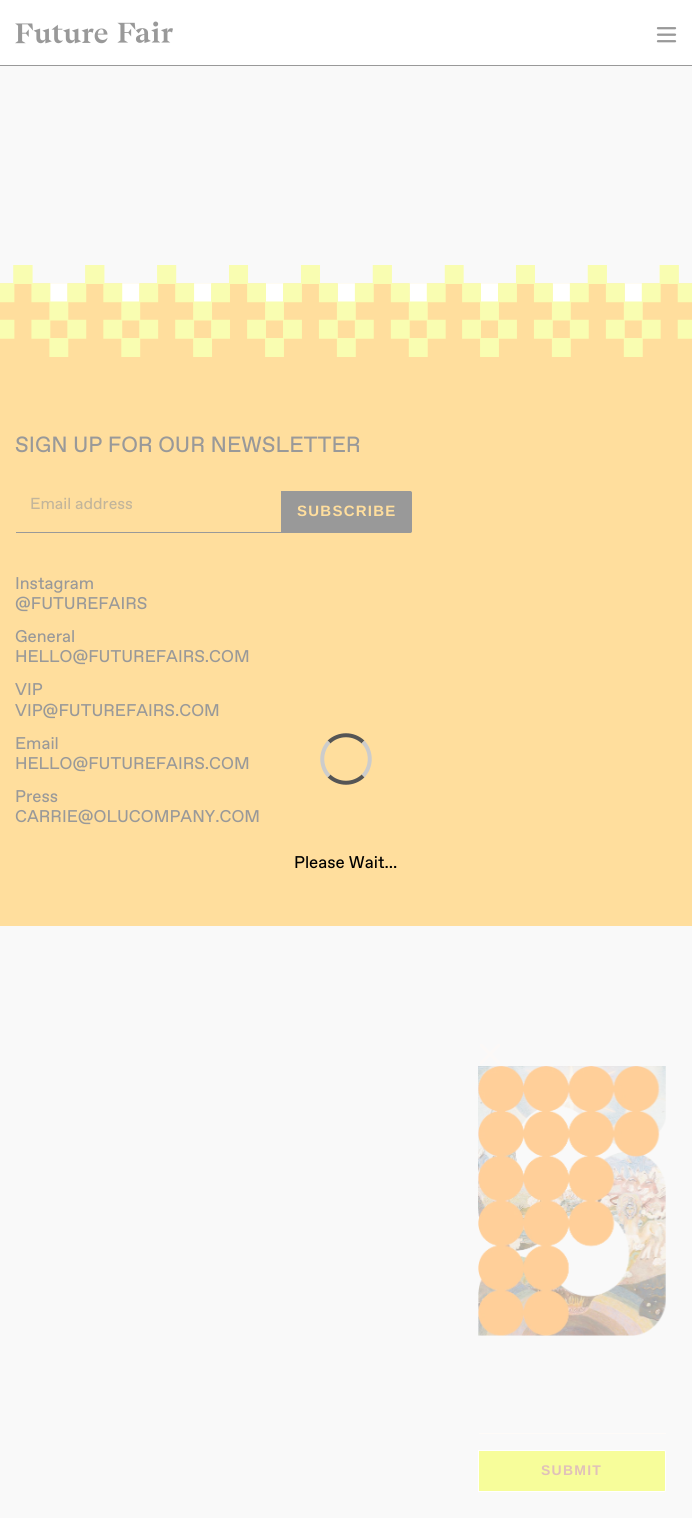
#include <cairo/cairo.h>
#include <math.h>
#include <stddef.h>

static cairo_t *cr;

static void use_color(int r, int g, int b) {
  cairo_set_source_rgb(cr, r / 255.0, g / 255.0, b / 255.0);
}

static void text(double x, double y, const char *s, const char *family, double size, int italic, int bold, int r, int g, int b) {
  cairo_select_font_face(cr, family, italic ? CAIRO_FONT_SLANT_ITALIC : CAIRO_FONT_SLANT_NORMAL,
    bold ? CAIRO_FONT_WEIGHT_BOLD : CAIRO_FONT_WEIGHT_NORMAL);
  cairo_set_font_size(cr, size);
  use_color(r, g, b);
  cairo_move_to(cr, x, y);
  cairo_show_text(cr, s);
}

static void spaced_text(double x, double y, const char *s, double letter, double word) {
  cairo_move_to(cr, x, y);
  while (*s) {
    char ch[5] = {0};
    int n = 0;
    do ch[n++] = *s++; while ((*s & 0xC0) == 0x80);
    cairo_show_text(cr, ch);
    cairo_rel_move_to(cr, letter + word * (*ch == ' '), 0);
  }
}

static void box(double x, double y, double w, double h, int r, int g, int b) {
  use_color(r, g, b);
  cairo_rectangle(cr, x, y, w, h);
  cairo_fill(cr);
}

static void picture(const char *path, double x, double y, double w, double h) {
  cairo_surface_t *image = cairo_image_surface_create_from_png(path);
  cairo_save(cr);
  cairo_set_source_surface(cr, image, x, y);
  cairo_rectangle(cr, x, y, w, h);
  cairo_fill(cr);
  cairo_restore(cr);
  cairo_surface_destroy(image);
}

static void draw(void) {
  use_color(249, 249, 249);
  cairo_paint(cr);
  picture("img_01.png", 0, 265, 692, 92);
  box(0, 357, 692, 569, 255, 222, 157);
  box(16, 532, 265, 1, 153, 153, 153);
  cairo_new_path(cr);
  cairo_move_to(cr, 281.5, 491.5);
  cairo_line_to(cr, 410, 491.5);
  cairo_curve_to(cr, 411, 491.5, 411.5, 492, 411.5, 493);
  cairo_line_to(cr, 411.5, 531);
  cairo_curve_to(cr, 411.5, 532, 411, 532.5, 410, 532.5);
  cairo_line_to(cr, 281.5, 532.5);
  cairo_close_path(cr);
  cairo_fill_preserve(cr);
  cairo_set_line_width(cr, 1);
  cairo_stroke(cr);
  cairo_new_path(cr);
  cairo_move_to(cr, 329, 742);
  cairo_curve_to(cr, 338.5, 733, 353.5, 733, 363, 742);
  use_color(85, 85, 85);
  cairo_set_line_width(cr, 4);
  cairo_stroke(cr);
  cairo_new_path(cr);
  cairo_move_to(cr, 363, 742);
  cairo_curve_to(cr, 372, 751.5, 372, 766.5, 363, 776);
  use_color(204, 204, 204);
  cairo_stroke(cr);
  cairo_new_path(cr);
  cairo_move_to(cr, 363, 776);
  cairo_curve_to(cr, 353.5, 785, 338.5, 785, 329, 776);
  use_color(85, 85, 85);
  cairo_stroke(cr);
  cairo_new_path(cr);
  cairo_move_to(cr, 329, 776);
  cairo_curve_to(cr, 320, 766.5, 320, 751.5, 329, 742);
  use_color(204, 204, 204);
  cairo_stroke(cr);
  box(0, 0, 692, 65, 255, 255, 255);
  box(0, 65, 692, 1, 153, 153, 153);
  picture("img_02.png", 15, 21, 158, 23);
  picture("img_03.png", 656, 27, 21, 16);
  picture("img_04.png", 480, 1044, 20, 20);
  picture("img_05.png", 478, 1066, 188, 270);
  box(479, 1433, 187, 1, 254, 251, 248);
  use_color(247, 253, 154);
  cairo_new_path(cr);
  cairo_move_to(cr, 478.5, 1450.5);
  cairo_line_to(cr, 664, 1450.5);
  cairo_curve_to(cr, 665, 1450.5, 665.5, 1451, 665.5, 1452);
  cairo_line_to(cr, 665.5, 1490);
  cairo_curve_to(cr, 665.5, 1491, 665, 1491.5, 664, 1491.5);
  cairo_line_to(cr, 478.5, 1491.5);
  cairo_close_path(cr);
  cairo_fill_preserve(cr);
  use_color(255, 255, 255);
  cairo_set_line_width(cr, 1);
  cairo_stroke(cr);
  text(15, 452, "SIGN UP FOR OUR NEWSLETTER", "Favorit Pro", 22, 0, 0, 153, 153, 153);
  text(30, 509, "Email address", "Favorit Pro", 16, 0, 0, 194, 181, 155);
  cairo_select_font_face(cr, "Liberation Sans", CAIRO_FONT_SLANT_NORMAL, CAIRO_FONT_WEIGHT_BOLD);
  cairo_set_font_size(cr, 15);
  use_color(255, 222, 157);
  spaced_text(297, 516, "SUBSCRIBE", 1.25, 0);
  text(15, 589, "Instagram", "Favorit Pro", 17, 0, 0, 153, 153, 153);
  text(15, 609, "@FUTUREFAIRS", "Favorit Pro", 17, 0, 0, 153, 153, 153);
  text(15, 642, "General", "Favorit Pro", 17, 0, 0, 153, 153, 153);
  text(15, 662, "HELLO@FUTUREFAIRS.COM", "Favorit Pro", 17, 0, 0, 153, 153, 153);
  text(15, 695, "VIP", "Favorit Pro", 17, 0, 0, 153, 153, 153);
  text(15, 716, "VIP@FUTUREFAIRS.COM", "Favorit Pro", 17, 0, 0, 153, 153, 153);
  text(15, 749, "Email", "Favorit Pro", 17, 0, 0, 153, 153, 153);
  text(15, 769, "HELLO@FUTUREFAIRS.COM", "Favorit Pro", 17, 0, 0, 153, 153, 153);
  text(15, 802, "Press", "Favorit Pro", 17, 0, 0, 153, 153, 153);
  text(15, 822, "CARRIE@OLUCOMPANY.COM", "Favorit Pro", 17, 0, 0, 153, 153, 153);
  text(294, 868, "Please Wait...", "Favorit Pro", 17, 0, 0, 0, 0, 0);
  cairo_select_font_face(cr, "Liberation Sans", CAIRO_FONT_SLANT_NORMAL, CAIRO_FONT_WEIGHT_BOLD);
  cairo_set_font_size(cr, 14);
  use_color(224, 193, 186);
  spaced_text(541, 1475, "SUBMIT", 1.25, 0);
}

int main(void) {
  cairo_surface_t *surface = cairo_image_surface_create(CAIRO_FORMAT_RGB24, 692, 1518);
  cr = cairo_create(surface);
  cairo_font_options_t *options = cairo_font_options_create();
  cairo_font_options_set_hint_metrics(options, CAIRO_HINT_METRICS_OFF);
  cairo_font_options_set_hint_style(options, CAIRO_HINT_STYLE_NONE);
  cairo_set_font_options(cr, options);
  cairo_set_miter_limit(cr, 4);
  draw();
  cairo_surface_write_to_png(surface, "out.png");
  cairo_font_options_destroy(options);
  cairo_destroy(cr);
  cairo_surface_destroy(surface);
  return 0;
}
